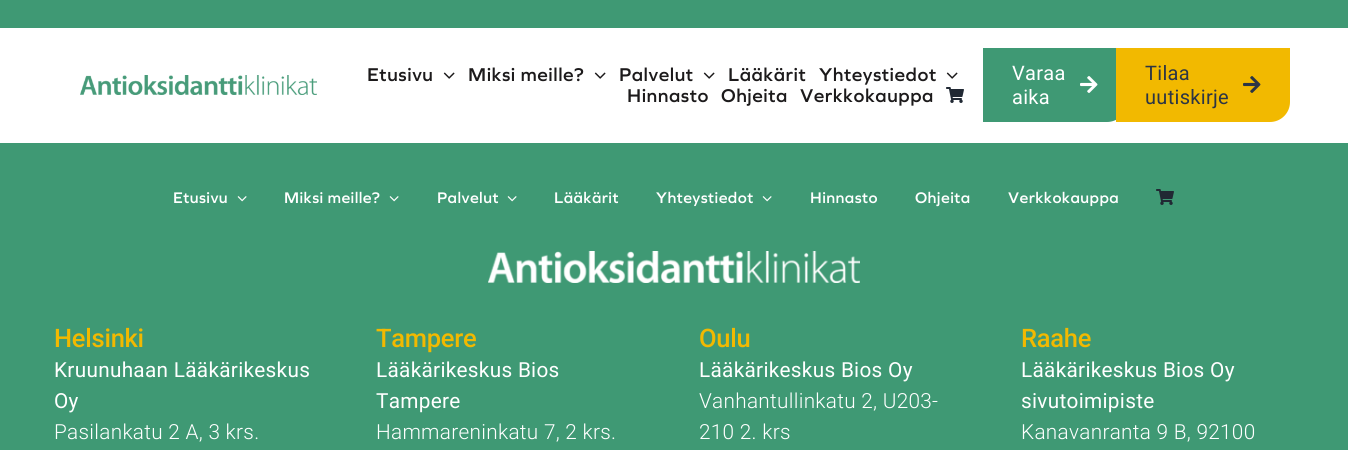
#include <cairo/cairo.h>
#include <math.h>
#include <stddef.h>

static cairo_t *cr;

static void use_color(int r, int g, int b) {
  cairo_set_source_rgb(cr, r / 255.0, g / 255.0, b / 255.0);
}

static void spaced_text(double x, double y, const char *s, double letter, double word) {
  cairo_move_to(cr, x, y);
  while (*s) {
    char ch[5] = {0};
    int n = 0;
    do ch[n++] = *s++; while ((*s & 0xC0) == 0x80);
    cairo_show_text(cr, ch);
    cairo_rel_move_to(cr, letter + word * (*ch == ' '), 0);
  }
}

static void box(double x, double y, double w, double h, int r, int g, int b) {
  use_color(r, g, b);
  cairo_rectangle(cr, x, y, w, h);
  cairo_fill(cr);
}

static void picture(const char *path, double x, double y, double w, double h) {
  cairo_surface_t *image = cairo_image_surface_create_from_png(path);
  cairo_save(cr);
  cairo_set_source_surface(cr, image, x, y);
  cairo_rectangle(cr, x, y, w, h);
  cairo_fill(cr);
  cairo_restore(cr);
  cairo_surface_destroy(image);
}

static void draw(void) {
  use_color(255, 255, 255);
  cairo_paint(cr);
  box(0, 0, 1348, 28, 63, 153, 116);
  picture("img_01.png", 80, 75, 237, 20);
  picture("img_02.png", 443, 72, 12, 7);
  picture("img_02.png", 594, 72, 12, 7);
  picture("img_02.png", 703, 72, 12, 7);
  picture("img_02.png", 946, 72, 12, 7);
  picture("img_03.png", 946, 87, 18, 16);
  cairo_new_path(cr);
  cairo_move_to(cr, 983, 48);
  cairo_line_to(cr, 1127, 48);
  cairo_line_to(cr, 1127, 102);
  cairo_curve_to(cr, 1127, 113, 1118, 122, 1107, 122);
  cairo_line_to(cr, 983, 122);
  cairo_close_path(cr);
  cairo_fill(cr);
  picture("img_04.png", 1080, 76, 18, 17);
  use_color(242, 185, 0);
  cairo_new_path(cr);
  cairo_move_to(cr, 1116, 48);
  cairo_line_to(cr, 1290, 48);
  cairo_line_to(cr, 1290, 102);
  cairo_curve_to(cr, 1290, 113, 1281, 122, 1270, 122);
  cairo_line_to(cr, 1116, 122);
  cairo_close_path(cr);
  cairo_fill(cr);
  picture("img_05.png", 1243, 76, 18, 17);
  box(0, 143, 1348, 307, 63, 153, 116);
  picture("img_06.png", 237, 196, 10, 6);
  picture("img_06.png", 389, 196, 10, 6);
  picture("img_06.png", 507, 196, 10, 6);
  picture("img_06.png", 762, 196, 10, 6);
  picture("img_07.png", 1156, 189, 18, 16);
  picture("img_08.png", 488, 251, 372, 32);
  cairo_select_font_face(cr, "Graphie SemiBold", CAIRO_FONT_SLANT_NORMAL, CAIRO_FONT_WEIGHT_NORMAL);
  cairo_set_font_size(cr, 19.25);
  use_color(28, 26, 27);
  spaced_text(367, 81, "Etusivu", 0.5, 0);
  spaced_text(468, 81, "Miksi meille?", 0.5, 0);
  spaced_text(619, 81, "Palvelut", 0.5, 0);
  spaced_text(728, 81, "Lääkärit", 0.5, 0);
  spaced_text(819, 81, "Yhteystiedot", 0.5, 0);
  spaced_text(627, 102, "Hinnasto", 0.5, 0);
  spaced_text(721, 102, "Ohjeita", 0.5, 0);
  spaced_text(800, 102, "Verkkokauppa", 0.5, 0);
  cairo_select_font_face(cr, "Roboto", CAIRO_FONT_SLANT_NORMAL, CAIRO_FONT_WEIGHT_NORMAL);
  cairo_set_font_size(cr, 20);
  use_color(255, 255, 255);
  spaced_text(1012, 80, "Varaa", 0.3, 0);
  spaced_text(1012, 104, "aika", 0.3, 0);
  use_color(44, 53, 69);
  spaced_text(1145, 80, "Tilaa", 0.3, 0);
  spaced_text(1145, 104, "uutiskirje", 0.3, 0);
  cairo_select_font_face(cr, "Graphie SemiBold", CAIRO_FONT_SLANT_NORMAL, CAIRO_FONT_WEIGHT_NORMAL);
  cairo_set_font_size(cr, 16);
  use_color(255, 255, 255);
  spaced_text(173, 203, "Etusivu", 0.4, 0);
  spaced_text(284, 203, "Miksi meille?", 0.4, 0);
  spaced_text(437, 203, "Palvelut", 0.4, 0);
  spaced_text(554, 203, "Lääkärit", 0.4, 0);
  spaced_text(656, 203, "Yhteystiedot", 0.4, 0);
  spaced_text(810, 203, "Hinnasto", 0.4, 0);
  spaced_text(915, 203, "Ohjeita", 0.4, 0);
  spaced_text(1008, 203, "Verkkokauppa", 0.4, 0);
  cairo_select_font_face(cr, "Roboto Medium", CAIRO_FONT_SLANT_NORMAL, CAIRO_FONT_WEIGHT_NORMAL);
  cairo_set_font_size(cr, 25.5);
  use_color(242, 185, 0);
  spaced_text(54, 347, "Helsinki", -0.25, 0);
  cairo_select_font_face(cr, "Roboto", CAIRO_FONT_SLANT_NORMAL, CAIRO_FONT_WEIGHT_NORMAL);
  cairo_set_font_size(cr, 20.75);
  use_color(255, 255, 255);
  spaced_text(54, 377, "Kruunuhaan Lääkärikeskus", 0.3, 0);
  spaced_text(54, 408, "Oy", 0.3, 0);
  cairo_select_font_face(cr, "Roboto Light", CAIRO_FONT_SLANT_NORMAL, CAIRO_FONT_WEIGHT_NORMAL);
  spaced_text(54, 439, "Pasilankatu 2 A, 3 krs.", 0.3, 0);
  cairo_select_font_face(cr, "Roboto Medium", CAIRO_FONT_SLANT_NORMAL, CAIRO_FONT_WEIGHT_NORMAL);
  cairo_set_font_size(cr, 25.5);
  use_color(242, 185, 0);
  spaced_text(376, 347, "Tampere", -0.25, 0);
  cairo_select_font_face(cr, "Roboto", CAIRO_FONT_SLANT_NORMAL, CAIRO_FONT_WEIGHT_NORMAL);
  cairo_set_font_size(cr, 20.75);
  use_color(255, 255, 255);
  spaced_text(376, 377, "Lääkärikeskus Bios", 0.3, 0);
  spaced_text(376, 408, "Tampere", 0.3, 0);
  cairo_select_font_face(cr, "Roboto Light", CAIRO_FONT_SLANT_NORMAL, CAIRO_FONT_WEIGHT_NORMAL);
  spaced_text(376, 439, "Hammareninkatu 7, 2 krs.", 0.3, 0);
  cairo_select_font_face(cr, "Roboto Medium", CAIRO_FONT_SLANT_NORMAL, CAIRO_FONT_WEIGHT_NORMAL);
  cairo_set_font_size(cr, 25.5);
  use_color(242, 185, 0);
  spaced_text(699, 347, "Oulu", -0.25, 0);
  cairo_select_font_face(cr, "Roboto", CAIRO_FONT_SLANT_NORMAL, CAIRO_FONT_WEIGHT_NORMAL);
  cairo_set_font_size(cr, 20.75);
  use_color(255, 255, 255);
  spaced_text(699, 377, "Lääkärikeskus Bios Oy", 0.3, 0);
  cairo_select_font_face(cr, "Roboto Light", CAIRO_FONT_SLANT_NORMAL, CAIRO_FONT_WEIGHT_NORMAL);
  spaced_text(699, 408, "Vanhantullinkatu 2, U203-", 0.3, 0);
  spaced_text(699, 439, "210 2. krs", 0.3, 0);
  cairo_select_font_face(cr, "Roboto Medium", CAIRO_FONT_SLANT_NORMAL, CAIRO_FONT_WEIGHT_NORMAL);
  cairo_set_font_size(cr, 25.5);
  use_color(242, 185, 0);
  spaced_text(1021, 347, "Raahe", -0.25, 0);
  cairo_select_font_face(cr, "Roboto", CAIRO_FONT_SLANT_NORMAL, CAIRO_FONT_WEIGHT_NORMAL);
  cairo_set_font_size(cr, 20.75);
  use_color(255, 255, 255);
  spaced_text(1021, 377, "Lääkärikeskus Bios Oy", 0.3, 0);
  spaced_text(1021, 408, "sivutoimipiste", 0.3, 0);
  cairo_select_font_face(cr, "Roboto Light", CAIRO_FONT_SLANT_NORMAL, CAIRO_FONT_WEIGHT_NORMAL);
  spaced_text(1021, 439, "Kanavanranta 9 B, 92100", 0.3, 0);
}

int main(void) {
  cairo_surface_t *surface = cairo_image_surface_create(CAIRO_FORMAT_RGB24, 1348, 450);
  cr = cairo_create(surface);
  cairo_font_options_t *options = cairo_font_options_create();
  cairo_font_options_set_hint_metrics(options, CAIRO_HINT_METRICS_OFF);
  cairo_font_options_set_hint_style(options, CAIRO_HINT_STYLE_NONE);
  cairo_set_font_options(cr, options);
  cairo_set_miter_limit(cr, 4);
  draw();
  cairo_surface_write_to_png(surface, "out.png");
  cairo_font_options_destroy(options);
  cairo_destroy(cr);
  cairo_surface_destroy(surface);
  return 0;
}
